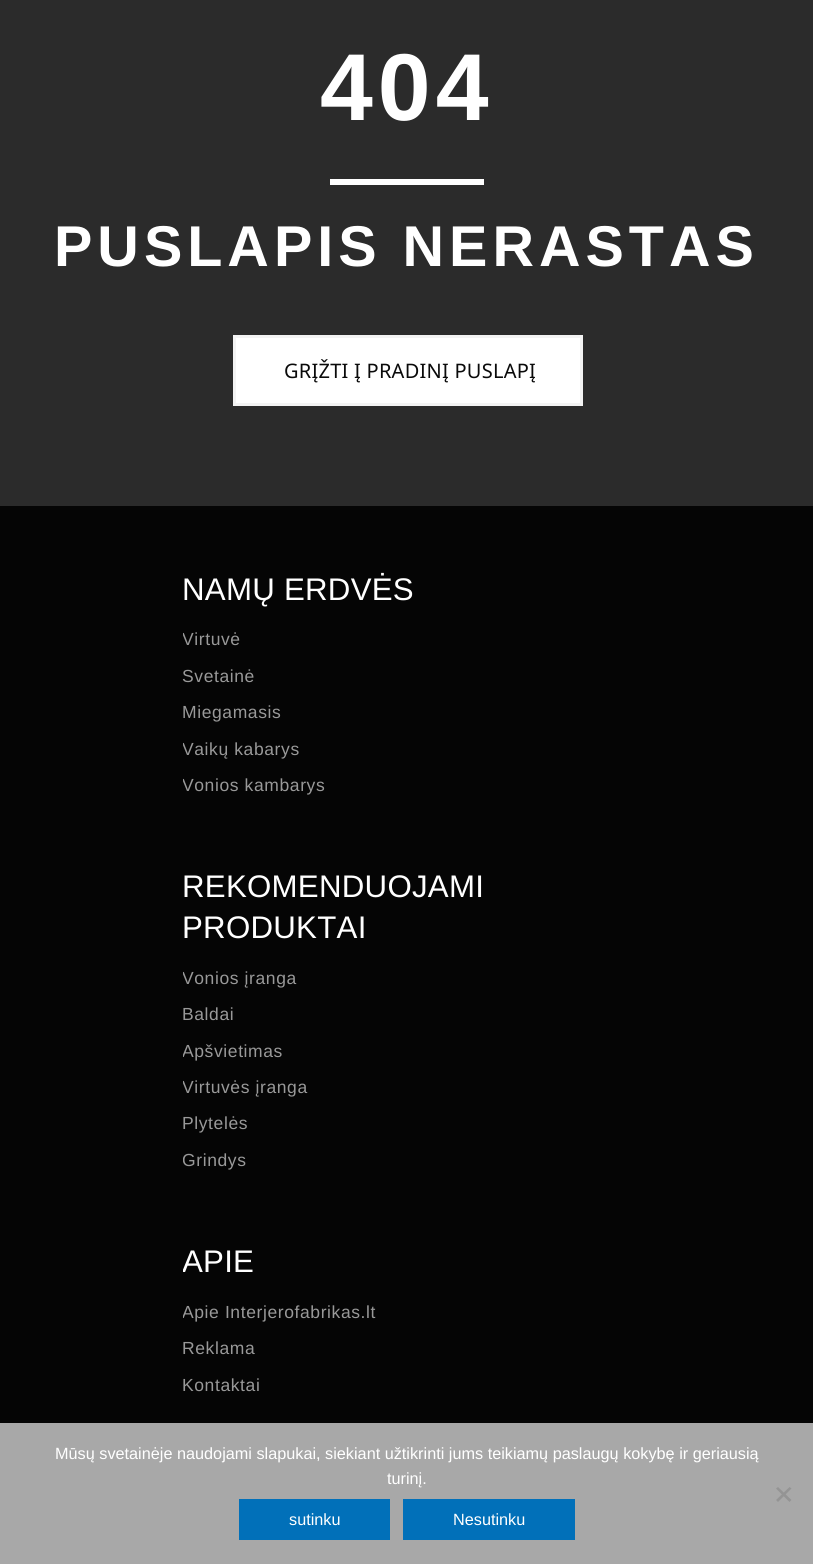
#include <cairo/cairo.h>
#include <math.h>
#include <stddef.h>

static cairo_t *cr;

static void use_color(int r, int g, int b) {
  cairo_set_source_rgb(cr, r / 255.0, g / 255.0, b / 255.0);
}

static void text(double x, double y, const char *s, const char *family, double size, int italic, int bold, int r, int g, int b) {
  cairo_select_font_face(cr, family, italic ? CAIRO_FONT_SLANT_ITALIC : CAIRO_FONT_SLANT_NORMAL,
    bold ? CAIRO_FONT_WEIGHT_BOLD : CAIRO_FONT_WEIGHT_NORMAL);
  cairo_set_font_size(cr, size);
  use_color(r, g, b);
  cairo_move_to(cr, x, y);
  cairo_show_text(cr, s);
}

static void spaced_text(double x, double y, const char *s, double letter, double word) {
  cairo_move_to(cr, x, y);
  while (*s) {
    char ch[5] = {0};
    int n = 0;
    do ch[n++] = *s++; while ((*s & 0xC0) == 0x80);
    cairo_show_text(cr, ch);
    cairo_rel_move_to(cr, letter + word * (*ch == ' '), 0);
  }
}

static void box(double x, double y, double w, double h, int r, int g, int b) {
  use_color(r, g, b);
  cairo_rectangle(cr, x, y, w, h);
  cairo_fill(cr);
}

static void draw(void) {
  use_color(43, 43, 43);
  cairo_paint(cr);
  box(330, 179, 154, 6, 255, 255, 255);
  cairo_rectangle(cr, 234.5, 336.5, 347, 68);
  cairo_fill_preserve(cr);
  use_color(243, 243, 243);
  cairo_set_line_width(cr, 3);
  cairo_stroke(cr);
  box(0, 506, 813, 917, 5, 5, 5);
  box(0, 1423, 813, 141, 168, 168, 168);
  use_color(148, 148, 148);
  cairo_new_path(cr);
  cairo_move_to(cr, 789.5, 1487);
  cairo_line_to(cr, 791.5, 1488.5);
  cairo_line_to(cr, 778, 1502);
  cairo_line_to(cr, 776, 1500);
  cairo_close_path(cr);
  cairo_fill(cr);
  cairo_new_path(cr);
  cairo_move_to(cr, 776, 1488.5);
  cairo_line_to(cr, 778, 1487);
  cairo_line_to(cr, 791.5, 1500);
  cairo_line_to(cr, 789.5, 1502);
  cairo_close_path(cr);
  cairo_fill(cr);
  box(239, 1499, 151, 41, 1, 112, 185);
  box(403, 1499, 172, 41, 1, 112, 185);
  cairo_select_font_face(cr, "Liberation Sans", CAIRO_FONT_SLANT_NORMAL, CAIRO_FONT_WEIGHT_BOLD);
  cairo_set_font_size(cr, 95);
  use_color(255, 255, 255);
  spaced_text(320, 120, "404", 5, 0);
  cairo_set_font_size(cr, 57.5);
  spaced_text(54, 266, "PUSLAPIS NERASTAS", 5, 0);
  cairo_select_font_face(cr, "Noto Sans", CAIRO_FONT_SLANT_NORMAL, CAIRO_FONT_WEIGHT_NORMAL);
  cairo_set_font_size(cr, 20);
  use_color(10, 10, 10);
  spaced_text(284, 378, "GRĮŽTI Į PRADINĮ PUSLAPĮ", 0.25, 0);
  cairo_select_font_face(cr, "Liberation Sans", CAIRO_FONT_SLANT_NORMAL, CAIRO_FONT_WEIGHT_NORMAL);
  cairo_set_font_size(cr, 31.25);
  use_color(255, 255, 255);
  spaced_text(182, 600, "NAMŲ ERDVĖS", 0.25, 0);
  cairo_save(cr);
  cairo_rectangle(cr, 183, 556, 450, 248);
  cairo_clip(cr);
  cairo_set_font_size(cr, 17.5);
  use_color(153, 153, 153);
  spaced_text(182, 645, "Virtuvė", 0.6, 0);
  cairo_restore(cr);
  cairo_set_font_size(cr, 17.5);
  use_color(153, 153, 153);
  spaced_text(182, 682, "Svetainė", 0.6, 0);
  spaced_text(182, 718, "Miegamasis", 0.6, 0);
  cairo_save(cr);
  cairo_rectangle(cr, 183, 556, 450, 248);
  cairo_clip(cr);
  spaced_text(182, 755, "Vaikų kabarys", 0.6, 0);
  spaced_text(182, 791, "Vonios kambarys", 0.6, 0);
  cairo_restore(cr);
  cairo_set_font_size(cr, 31.25);
  use_color(255, 255, 255);
  spaced_text(182, 897, "REKOMENDUOJAMI", 0.25, 0);
  spaced_text(182, 938, "PRODUKTAI", 0.25, 0);
  cairo_save(cr);
  cairo_rectangle(cr, 183, 854, 450, 325);
  cairo_clip(cr);
  cairo_set_font_size(cr, 17.5);
  use_color(153, 153, 153);
  spaced_text(182, 984, "Vonios įranga", 0.6, 0);
  cairo_restore(cr);
  cairo_set_font_size(cr, 17.5);
  use_color(153, 153, 153);
  spaced_text(182, 1020, "Baldai", 0.6, 0);
  cairo_save(cr);
  cairo_rectangle(cr, 183, 854, 450, 325);
  cairo_clip(cr);
  spaced_text(182, 1057, "Apšvietimas", 0.6, 0);
  spaced_text(182, 1093, "Virtuvės įranga", 0.6, 0);
  cairo_restore(cr);
  spaced_text(182, 1129, "Plytelės", 0.6, 0);
  cairo_save(cr);
  cairo_rectangle(cr, 183, 854, 450, 325);
  cairo_clip(cr);
  spaced_text(182, 1166, "Grindys", 0.6, 0);
  cairo_restore(cr);
  cairo_save(cr);
  cairo_rectangle(cr, 183, 1229, 450, 211);
  cairo_clip(cr);
  cairo_set_font_size(cr, 31.25);
  use_color(255, 255, 255);
  spaced_text(182, 1272, "APIE", 0.25, 0);
  cairo_set_font_size(cr, 17.5);
  use_color(153, 153, 153);
  spaced_text(182, 1318, "Apie Interjerofabrikas.lt", 0.6, 0);
  cairo_restore(cr);
  spaced_text(182, 1354, "Reklama", 0.6, 0);
  spaced_text(182, 1391, "Kontaktai", 0.6, 0);
  text(55, 1459, "Mūsų svetainėje naudojami slapukai, siekiant užtikrinti jums teikiamų paslaugų kokybę ir geriausią", "Liberation Sans", 16.25, 0, 0, 255, 255, 255);
  text(387, 1484, "turinį.", "Liberation Sans", 16.25, 0, 0, 255, 255, 255);
  text(289, 1525, "sutinku", "Liberation Sans", 16.25, 0, 0, 255, 255, 255);
  text(453, 1525, "Nesutinku", "Liberation Sans", 16.25, 0, 0, 255, 255, 255);
}

int main(void) {
  cairo_surface_t *surface = cairo_image_surface_create(CAIRO_FORMAT_RGB24, 813, 1564);
  cr = cairo_create(surface);
  cairo_font_options_t *options = cairo_font_options_create();
  cairo_font_options_set_hint_metrics(options, CAIRO_HINT_METRICS_OFF);
  cairo_font_options_set_hint_style(options, CAIRO_HINT_STYLE_NONE);
  cairo_set_font_options(cr, options);
  cairo_set_miter_limit(cr, 4);
  draw();
  cairo_surface_write_to_png(surface, "out.png");
  cairo_font_options_destroy(options);
  cairo_destroy(cr);
  cairo_surface_destroy(surface);
  return 0;
}
